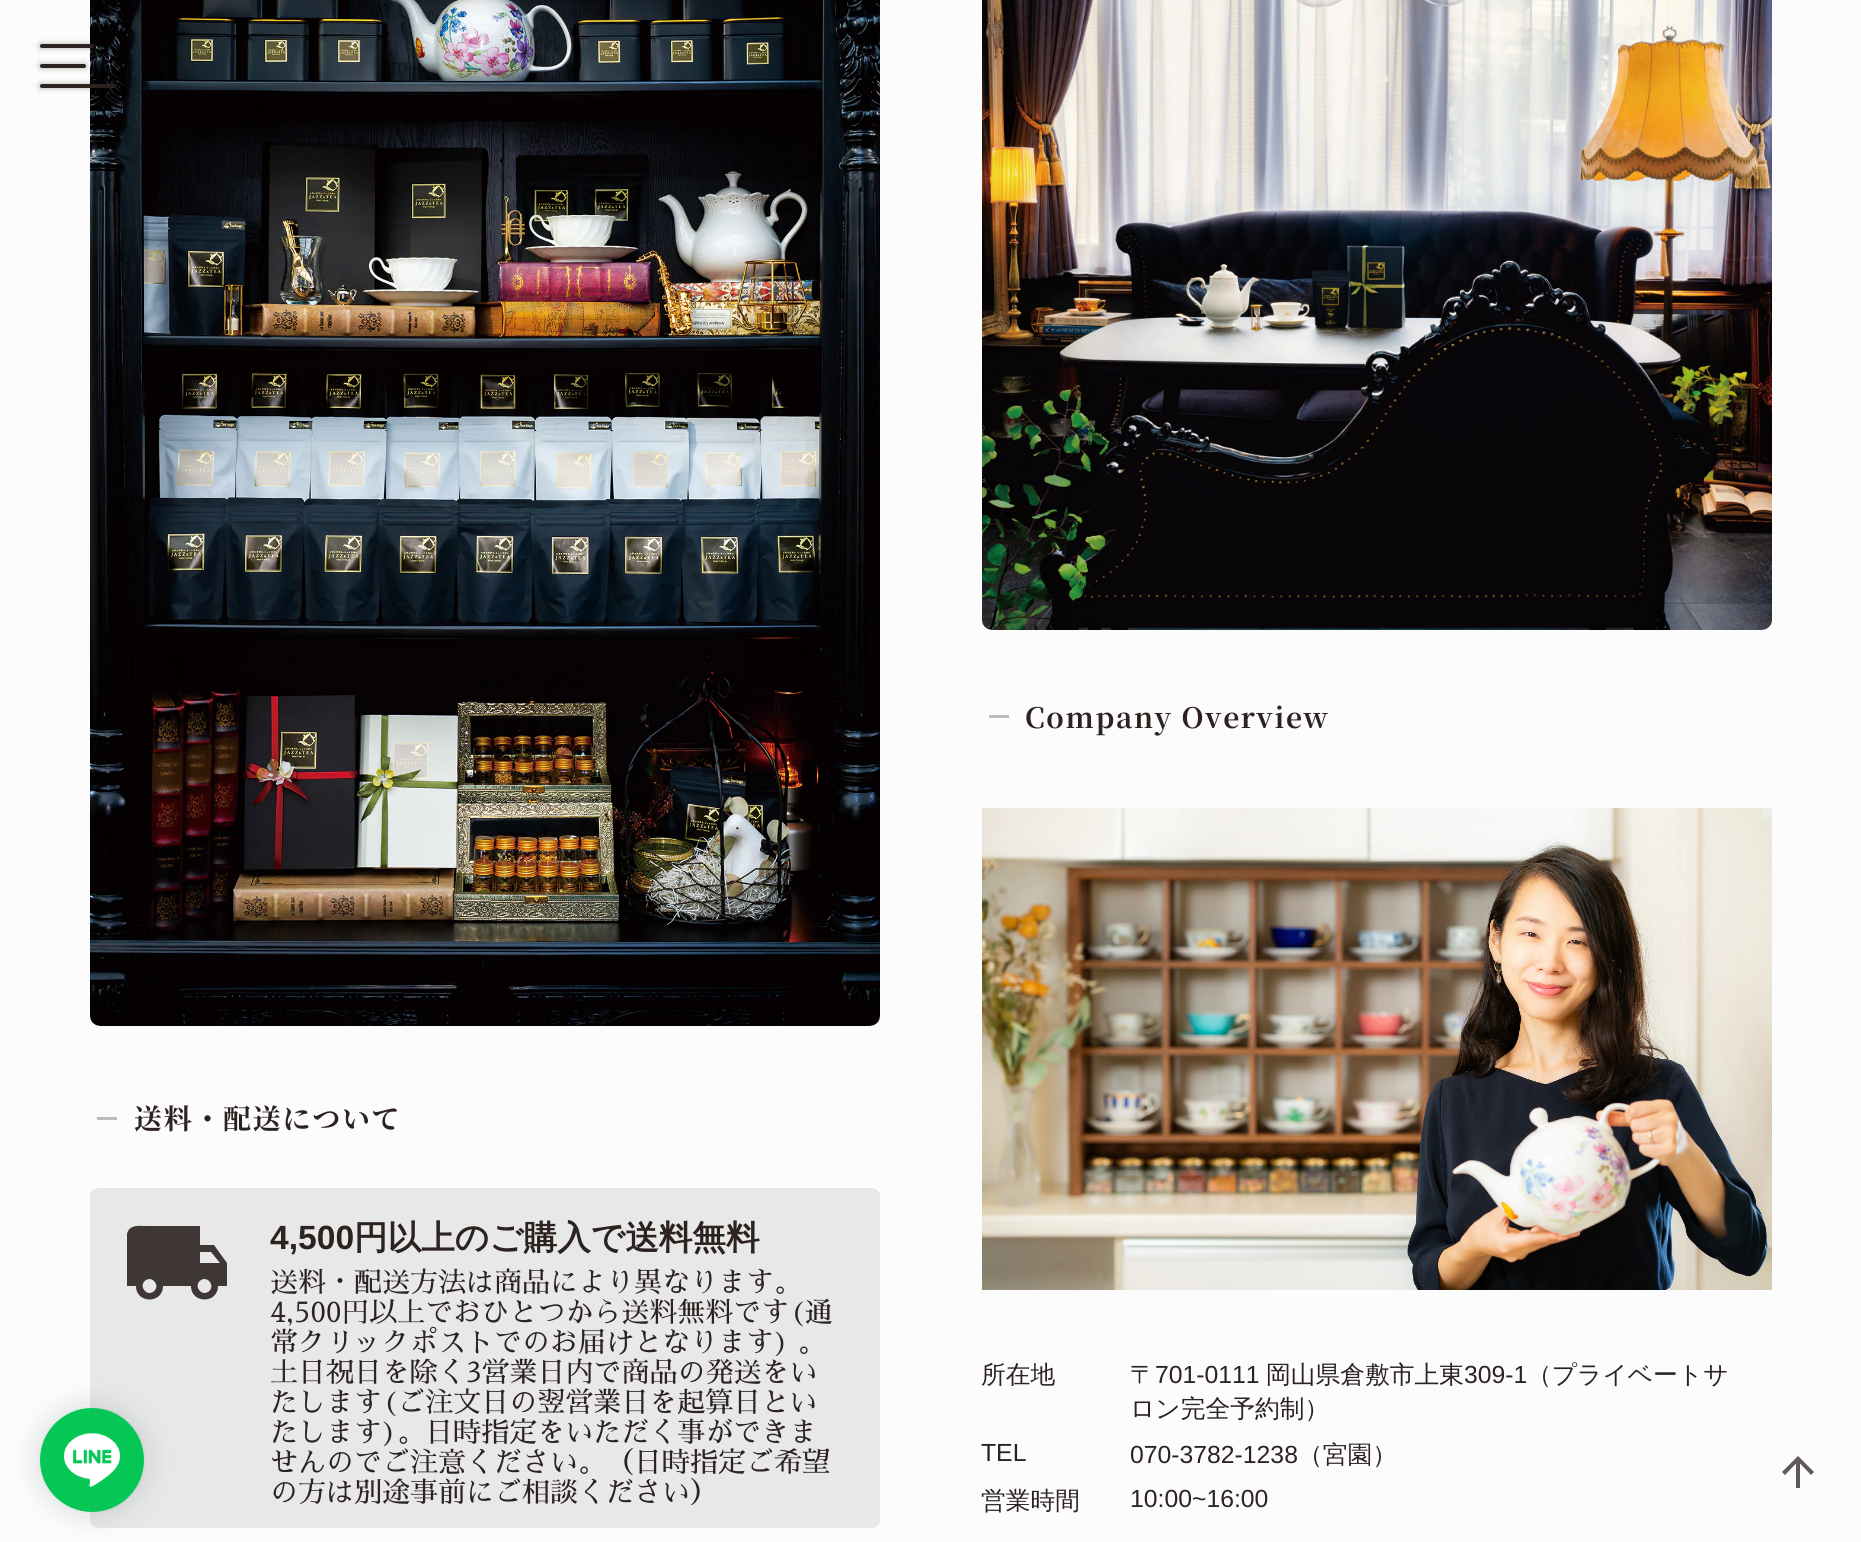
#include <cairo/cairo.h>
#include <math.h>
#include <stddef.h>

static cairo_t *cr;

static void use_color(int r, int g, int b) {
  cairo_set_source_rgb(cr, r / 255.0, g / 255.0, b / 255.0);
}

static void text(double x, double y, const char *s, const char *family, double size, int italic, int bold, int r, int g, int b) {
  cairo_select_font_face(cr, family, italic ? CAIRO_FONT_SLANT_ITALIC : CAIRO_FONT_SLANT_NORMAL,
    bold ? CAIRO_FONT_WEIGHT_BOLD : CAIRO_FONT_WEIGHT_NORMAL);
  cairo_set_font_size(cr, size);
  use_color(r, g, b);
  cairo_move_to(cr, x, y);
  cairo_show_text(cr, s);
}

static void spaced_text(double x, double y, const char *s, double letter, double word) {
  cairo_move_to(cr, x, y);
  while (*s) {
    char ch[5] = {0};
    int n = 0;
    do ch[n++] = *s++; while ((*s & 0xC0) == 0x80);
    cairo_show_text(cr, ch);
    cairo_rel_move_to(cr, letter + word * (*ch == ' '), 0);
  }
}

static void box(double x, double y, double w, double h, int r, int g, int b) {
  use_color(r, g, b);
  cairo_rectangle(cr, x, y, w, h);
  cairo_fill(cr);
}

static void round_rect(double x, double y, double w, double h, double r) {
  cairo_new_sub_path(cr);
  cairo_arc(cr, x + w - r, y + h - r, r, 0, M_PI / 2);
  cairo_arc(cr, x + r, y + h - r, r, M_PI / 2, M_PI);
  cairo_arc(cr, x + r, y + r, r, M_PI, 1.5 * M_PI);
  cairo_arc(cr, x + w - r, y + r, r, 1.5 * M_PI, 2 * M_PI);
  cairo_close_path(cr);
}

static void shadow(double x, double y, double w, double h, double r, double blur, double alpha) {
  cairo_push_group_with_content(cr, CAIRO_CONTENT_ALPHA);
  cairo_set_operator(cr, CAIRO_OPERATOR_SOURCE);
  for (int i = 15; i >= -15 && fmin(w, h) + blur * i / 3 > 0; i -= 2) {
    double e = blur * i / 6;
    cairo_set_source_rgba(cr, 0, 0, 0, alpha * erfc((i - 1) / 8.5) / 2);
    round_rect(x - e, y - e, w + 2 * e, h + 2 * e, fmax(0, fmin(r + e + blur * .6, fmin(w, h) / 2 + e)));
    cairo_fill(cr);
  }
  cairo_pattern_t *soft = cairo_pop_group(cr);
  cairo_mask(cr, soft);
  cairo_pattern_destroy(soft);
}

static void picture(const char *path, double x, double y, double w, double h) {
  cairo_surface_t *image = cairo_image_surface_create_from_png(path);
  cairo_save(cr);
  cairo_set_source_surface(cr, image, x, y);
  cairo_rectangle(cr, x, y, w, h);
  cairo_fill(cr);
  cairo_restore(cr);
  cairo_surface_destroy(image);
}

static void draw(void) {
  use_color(252, 252, 252);
  cairo_paint(cr);
  picture("img_02.png", 90, 0, 790, 1026);
  use_color(0, 0, 0);
  shadow(40, 64, 46, 4, 2, 3, 0.3);
  use_color(44, 35, 33);
  round_rect(40, 64, 46, 4, 2);
  cairo_fill(cr);
  use_color(0, 0, 0);
  shadow(40, 44, 54, 4, 2, 3, 0.3);
  use_color(44, 35, 33);
  round_rect(40, 44, 54, 4, 2);
  cairo_fill(cr);
  use_color(0, 0, 0);
  shadow(40, 84, 76, 4, 2, 3, 0.3);
  use_color(44, 35, 33);
  round_rect(40, 84, 76, 4, 2);
  cairo_fill(cr);
  use_color(232, 232, 232);
  round_rect(90, 1188, 790, 340, 8);
  cairo_fill(cr);
  use_color(51, 66, 88);
  shadow(40, 1408, 104, 104, 52, 15, 0.2);
  use_color(6, 199, 85);
  cairo_arc(cr, 92, 1460, 52, 0, 2 * M_PI);
  cairo_fill(cr);
  picture("img_01.png", 52, 1421, 80, 79);
  box(97, 1117, 20, 3, 190, 187, 186);
  use_color(63, 55, 53);
  cairo_new_path(cr);
  cairo_move_to(cr, 200, 1291);
  cairo_curve_to(cr, 206, 1297, 216, 1288, 209, 1281);
  cairo_curve_to(cr, 203, 1275, 193, 1284, 200, 1291);
  cairo_close_path(cr);
  cairo_move_to(cr, 211, 1252);
  cairo_line_to(cr, 200, 1252);
  cairo_line_to(cr, 200, 1263);
  cairo_line_to(cr, 220, 1263);
  cairo_close_path(cr);
  cairo_move_to(cr, 145, 1291);
  cairo_curve_to(cr, 151, 1297, 161, 1288, 154, 1281);
  cairo_curve_to(cr, 148, 1275, 138, 1284, 145, 1291);
  cairo_close_path(cr);
  cairo_move_to(cr, 214, 1245);
  cairo_line_to(cr, 227, 1263);
  cairo_line_to(cr, 227, 1286);
  cairo_line_to(cr, 218, 1286);
  cairo_curve_to(cr, 218, 1304, 191, 1304, 191, 1286);
  cairo_line_to(cr, 163, 1286);
  cairo_curve_to(cr, 163, 1304, 136, 1304, 136, 1286);
  cairo_line_to(cr, 127, 1286);
  cairo_line_to(cr, 127, 1234);
  cairo_curve_to(cr, 129, 1224, 140, 1226, 146, 1226);
  cairo_line_to(cr, 200, 1226);
  cairo_line_to(cr, 200, 1245);
  cairo_close_path(cr);
  cairo_fill(cr);
  picture("img_03.png", 982, 0, 790, 630);
  box(989, 715, 20, 3, 190, 187, 186);
  picture("img_04.png", 982, 808, 790, 482);
  use_color(96, 89, 88);
  cairo_new_path(cr);
  cairo_move_to(cr, 1782, 1472);
  cairo_line_to(cr, 1798, 1456);
  cairo_line_to(cr, 1814, 1472);
  cairo_line_to(cr, 1811, 1475);
  cairo_line_to(cr, 1800, 1463.5);
  cairo_line_to(cr, 1800, 1488);
  cairo_line_to(cr, 1796, 1488);
  cairo_line_to(cr, 1796, 1463.5);
  cairo_line_to(cr, 1785, 1475);
  cairo_close_path(cr);
  cairo_fill(cr);
  cairo_select_font_face(cr, "Noto Serif JP", CAIRO_FONT_SLANT_NORMAL, CAIRO_FONT_WEIGHT_BOLD);
  cairo_set_font_size(cr, 28);
  use_color(44, 35, 33);
  spaced_text(134, 1129, "送料・配送について", 1.7, 0);
  text(270, 1249, "4,500", "Liberation Sans", 33.6, 0, 1, 44, 35, 33);
  text(354, 1249, "円以上のご購入で送料無料", "WenQuanYi Zen Hei", 33.6, 0, 1, 44, 35, 33);
  text(270, 1292, "送料・配送方法は商品により異なります。", "Sawarabi Mincho", 28, 0, 0, 44, 35, 33);
  text(270, 1322, "4,500円以上でおひとつから送料無料です(通", "Sawarabi Mincho", 28, 0, 0, 44, 35, 33);
  text(270, 1352, "常クリックポストでのお届けとなります) 。", "Sawarabi Mincho", 28, 0, 0, 44, 35, 33);
  text(270, 1382, "土日祝日を除く3営業日内で商品の発送をい", "Sawarabi Mincho", 28, 0, 0, 44, 35, 33);
  text(270, 1412, "たします(ご注文日の翌営業日を起算日とい", "Sawarabi Mincho", 28, 0, 0, 44, 35, 33);
  text(270, 1442, "たします)。日時指定をいただく事ができま", "Sawarabi Mincho", 28, 0, 0, 44, 35, 33);
  text(270, 1472, "せんのでご注意ください。（日時指定ご希望", "Sawarabi Mincho", 28, 0, 0, 44, 35, 33);
  text(270, 1502, "の方は別途事前にご相談ください）", "Sawarabi Mincho", 28, 0, 0, 44, 35, 33);
  cairo_select_font_face(cr, "Noto Serif JP", CAIRO_FONT_SLANT_NORMAL, CAIRO_FONT_WEIGHT_BOLD);
  spaced_text(1025, 728, "Company Overview", 1.7, 0);
  text(981, 1383, "所在地", "WenQuanYi Zen Hei Medium", 24.75, 0, 0, 44, 35, 33);
  text(1130, 1383, "〒", "WenQuanYi Zen Hei Medium", 24.75, 0, 0, 44, 35, 33);
  text(1155, 1383, "701-0111", "Liberation Sans", 24.75, 0, 0, 44, 35, 33);
  text(1266, 1383, "岡山県倉敷市上東", "WenQuanYi Zen Hei Medium", 24.75, 0, 0, 44, 35, 33);
  text(1464, 1383, "309-1", "Liberation Sans", 24.75, 0, 0, 44, 35, 33);
  text(1527, 1383, "（プライベートサ", "WenQuanYi Zen Hei Medium", 24.75, 0, 0, 44, 35, 33);
  text(1130, 1417, "ロン完全予約制）", "WenQuanYi Zen Hei Medium", 24.75, 0, 0, 44, 35, 33);
  text(981, 1461, "TEL", "Liberation Sans", 24.75, 0, 0, 44, 35, 33);
  text(1130, 1463, "070-3782-1238", "Liberation Sans", 24.75, 0, 0, 44, 35, 33);
  text(1298, 1463, "（宮園）", "WenQuanYi Zen Hei Medium", 24.75, 0, 0, 44, 35, 33);
  text(981, 1509, "営業時間", "WenQuanYi Zen Hei Medium", 24.75, 0, 0, 44, 35, 33);
  text(1130, 1507, "10:00~16:00", "Liberation Sans", 24.75, 0, 0, 44, 35, 33);
}

int main(void) {
  cairo_surface_t *surface = cairo_image_surface_create(CAIRO_FORMAT_RGB24, 1861, 1542);
  cr = cairo_create(surface);
  cairo_font_options_t *options = cairo_font_options_create();
  cairo_font_options_set_hint_metrics(options, CAIRO_HINT_METRICS_OFF);
  cairo_font_options_set_hint_style(options, CAIRO_HINT_STYLE_NONE);
  cairo_set_font_options(cr, options);
  cairo_set_miter_limit(cr, 4);
  draw();
  cairo_surface_write_to_png(surface, "out.png");
  cairo_font_options_destroy(options);
  cairo_destroy(cr);
  cairo_surface_destroy(surface);
  return 0;
}
